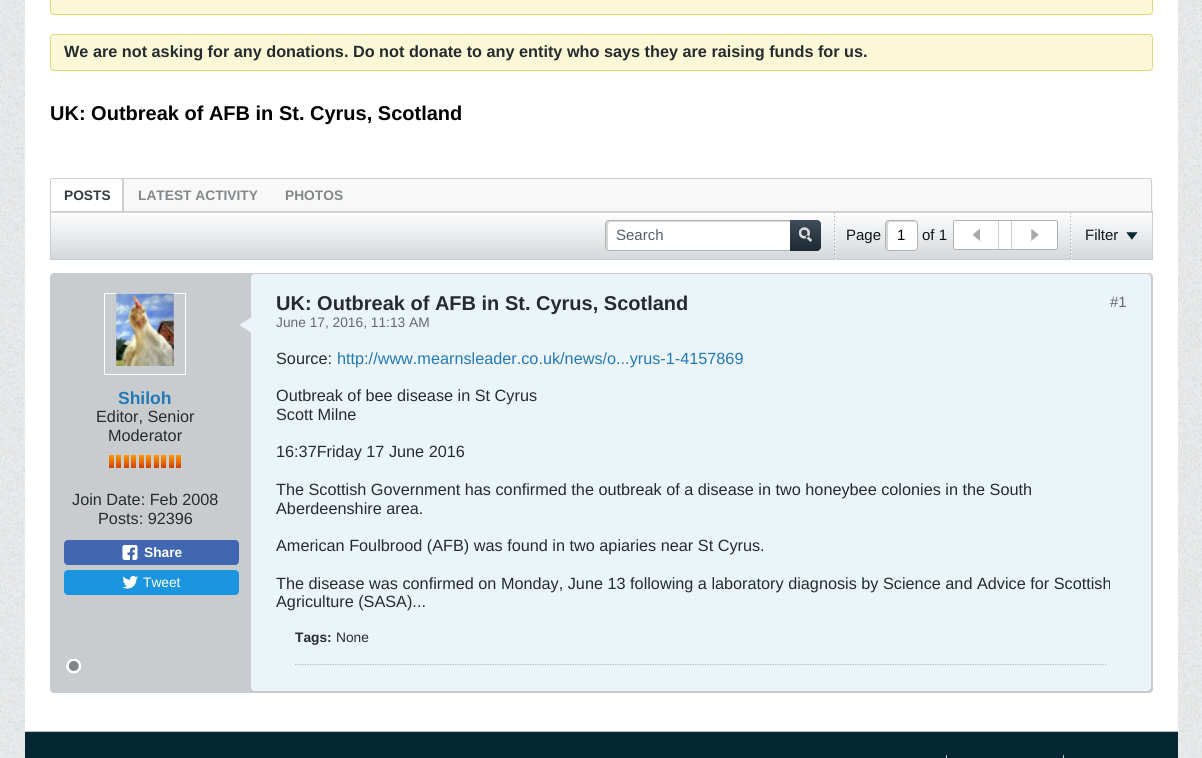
#include <cairo/cairo.h>
#include <math.h>
#include <stddef.h>

static cairo_t *cr;

static void use_color(int r, int g, int b) {
  cairo_set_source_rgb(cr, r / 255.0, g / 255.0, b / 255.0);
}

static void text(double x, double y, const char *s, const char *family, double size, int italic, int bold, int r, int g, int b) {
  cairo_select_font_face(cr, family, italic ? CAIRO_FONT_SLANT_ITALIC : CAIRO_FONT_SLANT_NORMAL,
    bold ? CAIRO_FONT_WEIGHT_BOLD : CAIRO_FONT_WEIGHT_NORMAL);
  cairo_set_font_size(cr, size);
  use_color(r, g, b);
  cairo_move_to(cr, x, y);
  cairo_show_text(cr, s);
}

static void box(double x, double y, double w, double h, int r, int g, int b) {
  use_color(r, g, b);
  cairo_rectangle(cr, x, y, w, h);
  cairo_fill(cr);
}

static void round_rect(double x, double y, double w, double h, double r) {
  cairo_new_sub_path(cr);
  cairo_arc(cr, x + w - r, y + h - r, r, 0, M_PI / 2);
  cairo_arc(cr, x + r, y + h - r, r, M_PI / 2, M_PI);
  cairo_arc(cr, x + r, y + r, r, M_PI, 1.5 * M_PI);
  cairo_arc(cr, x + w - r, y + r, r, 1.5 * M_PI, 2 * M_PI);
  cairo_close_path(cr);
}

static void picture(const char *path, double x, double y, double w, double h) {
  cairo_surface_t *image = cairo_image_surface_create_from_png(path);
  cairo_save(cr);
  cairo_set_source_surface(cr, image, x, y);
  cairo_rectangle(cr, x, y, w, h);
  cairo_fill(cr);
  cairo_restore(cr);
  cairo_surface_destroy(image);
}

static void draw(void) {
  cairo_pattern_t *gradient;
  use_color(234, 235, 236);
  cairo_paint(cr);
  picture("img_01.png", 0, 0, 1202, 758);
  box(25, 0, 1153, 731, 255, 255, 255);
  use_color(252, 247, 215);
  round_rect(50.5, -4.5, 1102, 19, 3.5);
  cairo_fill_preserve(cr);
  use_color(225, 212, 126);
  cairo_set_line_width(cr, 1);
  cairo_stroke(cr);
  use_color(252, 247, 215);
  round_rect(50.5, 34.5, 1102, 36, 3.5);
  cairo_fill_preserve(cr);
  use_color(225, 212, 126);
  cairo_stroke(cr);
  use_color(248, 248, 248);
  cairo_new_path(cr);
  cairo_move_to(cr, 54, 178);
  cairo_line_to(cr, 1149, 178);
  cairo_curve_to(cr, 1151, 178, 1153, 180, 1153, 182);
  cairo_line_to(cr, 1153, 211);
  cairo_line_to(cr, 50, 211);
  cairo_line_to(cr, 50, 182);
  cairo_curve_to(cr, 50, 180, 52, 178, 54, 178);
  cairo_close_path(cr);
  cairo_fill(cr);
  use_color(201, 206, 210);
  cairo_set_fill_rule(cr, CAIRO_FILL_RULE_EVEN_ODD);
  cairo_new_path(cr);
  cairo_move_to(cr, 54, 178);
  cairo_line_to(cr, 1149, 178);
  cairo_curve_to(cr, 1151, 178, 1152, 179, 1152, 181);
  cairo_line_to(cr, 1152, 211);
  cairo_line_to(cr, 50, 211);
  cairo_line_to(cr, 50, 181);
  cairo_curve_to(cr, 50, 179, 52, 178, 54, 178);
  cairo_close_path(cr);
  cairo_move_to(cr, 54, 179);
  cairo_line_to(cr, 1149, 179);
  cairo_curve_to(cr, 1150, 179, 1151, 180, 1151, 181);
  cairo_line_to(cr, 1151, 211);
  cairo_line_to(cr, 51, 211);
  cairo_line_to(cr, 51, 181);
  cairo_curve_to(cr, 51, 180, 52, 179, 54, 179);
  cairo_close_path(cr);
  cairo_fill(cr);
  use_color(255, 255, 255);
  cairo_new_path(cr);
  cairo_move_to(cr, 54, 178);
  cairo_line_to(cr, 120, 178);
  cairo_curve_to(cr, 122, 178, 124, 180, 124, 182);
  cairo_line_to(cr, 124, 211);
  cairo_line_to(cr, 50, 211);
  cairo_line_to(cr, 50, 182);
  cairo_curve_to(cr, 50, 180, 52, 178, 54, 178);
  cairo_close_path(cr);
  cairo_fill(cr);
  use_color(201, 206, 210);
  cairo_new_path(cr);
  cairo_move_to(cr, 54, 178);
  cairo_line_to(cr, 120, 178);
  cairo_curve_to(cr, 122, 178, 124, 179, 124, 181);
  cairo_line_to(cr, 124, 211);
  cairo_line_to(cr, 50, 211);
  cairo_line_to(cr, 50, 181);
  cairo_curve_to(cr, 50, 179, 52, 178, 54, 178);
  cairo_close_path(cr);
  cairo_move_to(cr, 54, 179);
  cairo_line_to(cr, 120, 179);
  cairo_curve_to(cr, 121, 179, 122, 180, 122, 181);
  cairo_line_to(cr, 122, 211);
  cairo_line_to(cr, 51, 211);
  cairo_line_to(cr, 51, 181);
  cairo_curve_to(cr, 51, 180, 52, 179, 54, 179);
  cairo_close_path(cr);
  cairo_fill(cr);
  gradient = cairo_pattern_create_linear(601, 166, 601, 213);
  cairo_pattern_add_color_stop_rgba(gradient, 0, 0.996, 0.996, 1, 1);
  cairo_pattern_add_color_stop_rgba(gradient, 1, 0.835, 0.847, 0.855, 1);
  cairo_set_source(cr, gradient);
  cairo_pattern_destroy(gradient);
  cairo_rectangle(cr, 50, 212, 1103, 1);
  cairo_fill(cr);
  gradient = cairo_pattern_create_linear(601, 212, 601, 259);
  cairo_pattern_add_color_stop_rgba(gradient, 0, 0.996, 0.996, 1, 1);
  cairo_pattern_add_color_stop_rgba(gradient, 1, 0.835, 0.847, 0.855, 1);
  cairo_set_source(cr, gradient);
  cairo_pattern_destroy(gradient);
  cairo_rectangle(cr, 51, 214, 1101, 45);
  cairo_fill(cr);
  cairo_rectangle(cr, 50.5, 211.5, 1102, 48);
  use_color(201, 206, 210);
  cairo_stroke(cr);
  use_color(255, 255, 255);
  round_rect(605, 220, 216, 31, 4);
  cairo_fill(cr);
  use_color(213, 213, 213);
  cairo_set_fill_rule(cr, CAIRO_FILL_RULE_WINDING);
  cairo_new_path(cr);
  cairo_move_to(cr, 610, 222);
  cairo_line_to(cr, 820, 222);
  cairo_curve_to(cr, 819, 222, 818, 221, 818, 221);
  cairo_line_to(cr, 608, 221);
  cairo_curve_to(cr, 607, 221, 606, 222, 606, 224);
  cairo_line_to(cr, 606, 248);
  cairo_curve_to(cr, 606, 249, 607, 250, 608, 250);
  cairo_line_to(cr, 608, 237);
  cairo_curve_to(cr, 608, 235, 607, 222, 610, 222);
  cairo_close_path(cr);
  cairo_fill(cr);
  round_rect(605.5, 220.5, 215, 30, 3.5);
  use_color(174, 179, 182);
  cairo_stroke(cr);
  gradient = cairo_pattern_create_linear(806, 220, 806, 251);
  cairo_pattern_add_color_stop_rgba(gradient, 0, 0.251, 0.302, 0.353, 1);
  cairo_pattern_add_color_stop_rgba(gradient, 1, 0.11, 0.161, 0.192, 1);
  cairo_set_source(cr, gradient);
  cairo_pattern_destroy(gradient);
  cairo_new_path(cr);
  cairo_move_to(cr, 790, 220);
  cairo_line_to(cr, 817, 220);
  cairo_curve_to(cr, 819, 220, 821, 222, 821, 224);
  cairo_line_to(cr, 821, 247);
  cairo_curve_to(cr, 821, 249, 819, 251, 817, 251);
  cairo_line_to(cr, 790, 251);
  cairo_close_path(cr);
  cairo_fill(cr);
  picture("img_02.png", 799, 227, 13, 15);
  picture("img_03.png", 834, 213, 1, 46);
  picture("img_04.png", 835, 218, 1, 42);
  use_color(255, 255, 255);
  round_rect(885, 220, 33, 31, 4);
  cairo_fill(cr);
  use_color(213, 213, 213);
  cairo_new_path(cr);
  cairo_move_to(cr, 890, 222);
  cairo_line_to(cr, 915.5, 222);
  cairo_curve_to(cr, 915, 221.5, 914.5, 221, 913.5, 221);
  cairo_line_to(cr, 888.5, 221);
  cairo_curve_to(cr, 887, 221, 886, 222, 886, 223.5);
  cairo_line_to(cr, 886, 247.5);
  cairo_curve_to(cr, 886, 249, 887, 250, 888.5, 250);
  cairo_line_to(cr, 888, 249);
  cairo_line_to(cr, 888, 225);
  cairo_curve_to(cr, 888, 224, 889, 222, 890, 222);
  cairo_close_path(cr);
  cairo_fill(cr);
  round_rect(885.5, 220.5, 32, 30, 3.5);
  use_color(174, 179, 182);
  cairo_stroke(cr);
  use_color(255, 255, 255);
  round_rect(953.5, 220.5, 104, 29, 2);
  cairo_fill_preserve(cr);
  use_color(174, 179, 182);
  cairo_stroke(cr);
  box(998, 221, 1, 28, 205, 209, 212);
  picture("img_05.png", 973, 229, 7, 12);
  box(1011, 221, 1, 28, 205, 209, 212);
  picture("img_06.png", 1031, 229, 8, 12);
  picture("img_03.png", 1070, 213, 1, 46);
  picture("img_04.png", 1071, 218, 1, 42);
  picture("img_07.png", 1126, 232, 12, 8);
  use_color(200, 204, 206);
  round_rect(50.5, 273.5, 1102, 419, 3.5);
  cairo_fill_preserve(cr);
  cairo_stroke(cr);
  cairo_rectangle(cr, 104.5, 293.5, 81, 81);
  use_color(255, 255, 255);
  cairo_stroke(cr);
  picture("img_08.png", 116, 293, 58, 73);
  gradient = cairo_pattern_create_linear(111, 455, 111, 468);
  cairo_pattern_add_color_stop_rgba(gradient, 0, 1, 0.6, 0, 1);
  cairo_pattern_add_color_stop_rgba(gradient, 1, 0.812, 0.255, 0.016, 1);
  cairo_set_source(cr, gradient);
  cairo_pattern_destroy(gradient);
  cairo_rectangle(cr, 109, 455, 5, 13);
  cairo_fill(cr);
  gradient = cairo_pattern_create_linear(119, 455, 119, 468);
  cairo_pattern_add_color_stop_rgba(gradient, 0, 1, 0.6, 0, 1);
  cairo_pattern_add_color_stop_rgba(gradient, 1, 0.812, 0.255, 0.016, 1);
  cairo_set_source(cr, gradient);
  cairo_pattern_destroy(gradient);
  cairo_rectangle(cr, 116, 455, 5, 13);
  cairo_fill(cr);
  gradient = cairo_pattern_create_linear(126, 455, 126, 468);
  cairo_pattern_add_color_stop_rgba(gradient, 0, 1, 0.6, 0, 1);
  cairo_pattern_add_color_stop_rgba(gradient, 1, 0.812, 0.255, 0.016, 1);
  cairo_set_source(cr, gradient);
  cairo_pattern_destroy(gradient);
  cairo_rectangle(cr, 124, 455, 5, 13);
  cairo_fill(cr);
  gradient = cairo_pattern_create_linear(134, 455, 134, 468);
  cairo_pattern_add_color_stop_rgba(gradient, 0, 1, 0.6, 0, 1);
  cairo_pattern_add_color_stop_rgba(gradient, 1, 0.812, 0.255, 0.016, 1);
  cairo_set_source(cr, gradient);
  cairo_pattern_destroy(gradient);
  cairo_rectangle(cr, 131, 455, 5, 13);
  cairo_fill(cr);
  gradient = cairo_pattern_create_linear(141, 455, 141, 468);
  cairo_pattern_add_color_stop_rgba(gradient, 0, 1, 0.6, 0, 1);
  cairo_pattern_add_color_stop_rgba(gradient, 1, 0.812, 0.255, 0.016, 1);
  cairo_set_source(cr, gradient);
  cairo_pattern_destroy(gradient);
  cairo_rectangle(cr, 139, 455, 5, 13);
  cairo_fill(cr);
  gradient = cairo_pattern_create_linear(149, 455, 149, 468);
  cairo_pattern_add_color_stop_rgba(gradient, 0, 1, 0.6, 0, 1);
  cairo_pattern_add_color_stop_rgba(gradient, 1, 0.812, 0.255, 0.016, 1);
  cairo_set_source(cr, gradient);
  cairo_pattern_destroy(gradient);
  cairo_rectangle(cr, 146, 455, 5, 13);
  cairo_fill(cr);
  gradient = cairo_pattern_create_linear(156, 455, 156, 468);
  cairo_pattern_add_color_stop_rgba(gradient, 0, 1, 0.6, 0, 1);
  cairo_pattern_add_color_stop_rgba(gradient, 1, 0.812, 0.255, 0.016, 1);
  cairo_set_source(cr, gradient);
  cairo_pattern_destroy(gradient);
  cairo_rectangle(cr, 154, 455, 5, 13);
  cairo_fill(cr);
  gradient = cairo_pattern_create_linear(164, 455, 164, 468);
  cairo_pattern_add_color_stop_rgba(gradient, 0, 1, 0.6, 0, 1);
  cairo_pattern_add_color_stop_rgba(gradient, 1, 0.812, 0.255, 0.016, 1);
  cairo_set_source(cr, gradient);
  cairo_pattern_destroy(gradient);
  cairo_rectangle(cr, 161, 455, 5, 13);
  cairo_fill(cr);
  gradient = cairo_pattern_create_linear(171, 455, 171, 468);
  cairo_pattern_add_color_stop_rgba(gradient, 0, 1, 0.6, 0, 1);
  cairo_pattern_add_color_stop_rgba(gradient, 1, 0.812, 0.255, 0.016, 1);
  cairo_set_source(cr, gradient);
  cairo_pattern_destroy(gradient);
  cairo_rectangle(cr, 169, 455, 5, 13);
  cairo_fill(cr);
  gradient = cairo_pattern_create_linear(179, 455, 179, 468);
  cairo_pattern_add_color_stop_rgba(gradient, 0, 1, 0.6, 0, 1);
  cairo_pattern_add_color_stop_rgba(gradient, 1, 0.812, 0.255, 0.016, 1);
  cairo_set_source(cr, gradient);
  cairo_pattern_destroy(gradient);
  cairo_rectangle(cr, 176, 455, 5, 13);
  cairo_fill(cr);
  picture("img_09.png", 66, 659, 15, 15);
  use_color(66, 103, 178);
  round_rect(64, 540, 175, 25, 4);
  cairo_fill(cr);
  picture("img_10.png", 122, 545, 16, 15);
  use_color(27, 149, 224);
  round_rect(64, 570, 175, 25, 4);
  cairo_fill(cr);
  picture("img_11.png", 122, 576, 16, 13);
  use_color(235, 244, 249);
  round_rect(251, 274, 900, 417, 4);
  cairo_fill(cr);
  cairo_new_path(cr);
  cairo_move_to(cr, 251, 317.5);
  cairo_line_to(cr, 251, 332.5);
  cairo_line_to(cr, 239, 325);
  cairo_close_path(cr);
  cairo_fill(cr);
  cairo_new_path(cr);
  cairo_move_to(cr, 295, 664.5);
  cairo_line_to(cr, 1107.5, 664.5);
  use_color(183, 188, 190);
  cairo_set_line_width(cr, 1.2);
  cairo_set_dash(cr, (double[]){1.25, 1.25}, 2, 0);
  cairo_stroke(cr);
  box(25, 732, 1153, 26, 5, 39, 51);
  box(25, 731, 1153, 1, 194, 194, 194);
  box(946, 755, 1, 3, 194, 194, 194);
  box(1063, 755, 1, 3, 194, 194, 194);
  text(64, 57, "We are not asking for any donations. Do not donate to any entity who says they are raising funds for us.", "Liberation Sans", 16.25, 0, 1, 37, 44, 47);
  text(50, 120, "UK: Outbreak of AFB in St. Cyrus, Scotland", "Liberation Sans", 20, 0, 1, 0, 0, 0);
  text(64, 200, "POSTS", "Liberation Sans", 13.75, 0, 1, 52, 58, 61);
  text(138, 200, "LATEST ACTIVITY", "Liberation Sans", 13.75, 0, 1, 131, 135, 137);
  text(285, 200, "PHOTOS", "Liberation Sans", 13.75, 0, 1, 131, 135, 137);
  text(616, 240, "Search", "Liberation Sans", 15, 0, 0, 85, 96, 101);
  text(846, 240, "Page", "Liberation Sans", 15, 0, 0, 9, 22, 27);
  text(897, 240, "1", "Liberation Sans", 15, 0, 0, 0, 0, 0);
  text(922, 240, "of 1", "Liberation Sans", 15, 0, 0, 9, 22, 27);
  text(1085, 240, "Filter", "Liberation Sans", 15, 0, 0, 9, 22, 27);
  text(118, 404, "Shiloh", "Liberation Sans", 17.5, 0, 1, 35, 121, 181);
  text(96, 422, "Editor, Senior", "Liberation Sans", 16.25, 0, 0, 37, 44, 47);
  text(108, 441, "Moderator", "Liberation Sans", 16.25, 0, 0, 37, 44, 47);
  text(72, 505, "Join Date: Feb 2008", "Liberation Sans", 16.25, 0, 0, 37, 44, 47);
  text(98, 524, "Posts: 92396", "Liberation Sans", 16.25, 0, 0, 37, 44, 47);
  text(144, 557, "Share", "Liberation Sans", 13.75, 0, 1, 255, 255, 255);
  text(143, 587, "Tweet", "Liberation Sans", 13.75, 0, 0, 255, 255, 255);
  text(276, 310, "UK: Outbreak of AFB in St. Cyrus, Scotland", "Liberation Sans", 20, 0, 1, 37, 44, 47);
  text(276, 327, "June 17, 2016, 11:13 AM", "Liberation Sans", 13.75, 0, 0, 101, 106, 109);
  text(1110, 307, "#1", "Liberation Sans", 15, 0, 0, 101, 106, 109);
  text(276, 364, "Source:", "Liberation Sans", 16.25, 0, 0, 37, 44, 47);
  text(337, 364, "http://www.mearnsleader.co.uk/news/o...yrus-1-4157869", "Liberation Sans", 16.25, 0, 0, 35, 121, 181);
  text(276, 401, "Outbreak of bee disease in St Cyrus", "Liberation Sans", 16.25, 0, 0, 37, 44, 47);
  text(276, 420, "Scott Milne", "Liberation Sans", 16.25, 0, 0, 37, 44, 47);
  text(276, 457, "16:37Friday 17 June 2016", "Liberation Sans", 16.25, 0, 0, 37, 44, 47);
  text(276, 495, "The Scottish Government has confirmed the outbreak of a disease in two honeybee colonies in the South", "Liberation Sans", 16.25, 0, 0, 37, 44, 47);
  text(276, 514, "Aberdeenshire area.", "Liberation Sans", 16.25, 0, 0, 37, 44, 47);
  text(276, 551, "American Foulbrood (AFB) was found in two apiaries near St Cyrus.", "Liberation Sans", 16.25, 0, 0, 37, 44, 47);
  text(276, 589, "The disease was confirmed on Monday, June 13 following a laboratory diagnosis by Science and Advice for Scottish", "Liberation Sans", 16.25, 0, 0, 37, 44, 47);
  text(276, 607, "Agriculture (SASA)...", "Liberation Sans", 16.25, 0, 0, 37, 44, 47);
  text(295, 642, "Tags:", "Liberation Sans", 13.75, 0, 1, 37, 44, 47);
  text(336, 642, "None", "Liberation Sans", 13.75, 0, 0, 37, 44, 47);
}

int main(void) {
  cairo_surface_t *surface = cairo_image_surface_create(CAIRO_FORMAT_RGB24, 1202, 758);
  cr = cairo_create(surface);
  cairo_font_options_t *options = cairo_font_options_create();
  cairo_font_options_set_hint_metrics(options, CAIRO_HINT_METRICS_OFF);
  cairo_font_options_set_hint_style(options, CAIRO_HINT_STYLE_NONE);
  cairo_set_font_options(cr, options);
  cairo_set_miter_limit(cr, 4);
  draw();
  cairo_surface_write_to_png(surface, "out.png");
  cairo_font_options_destroy(options);
  cairo_destroy(cr);
  cairo_surface_destroy(surface);
  return 0;
}
